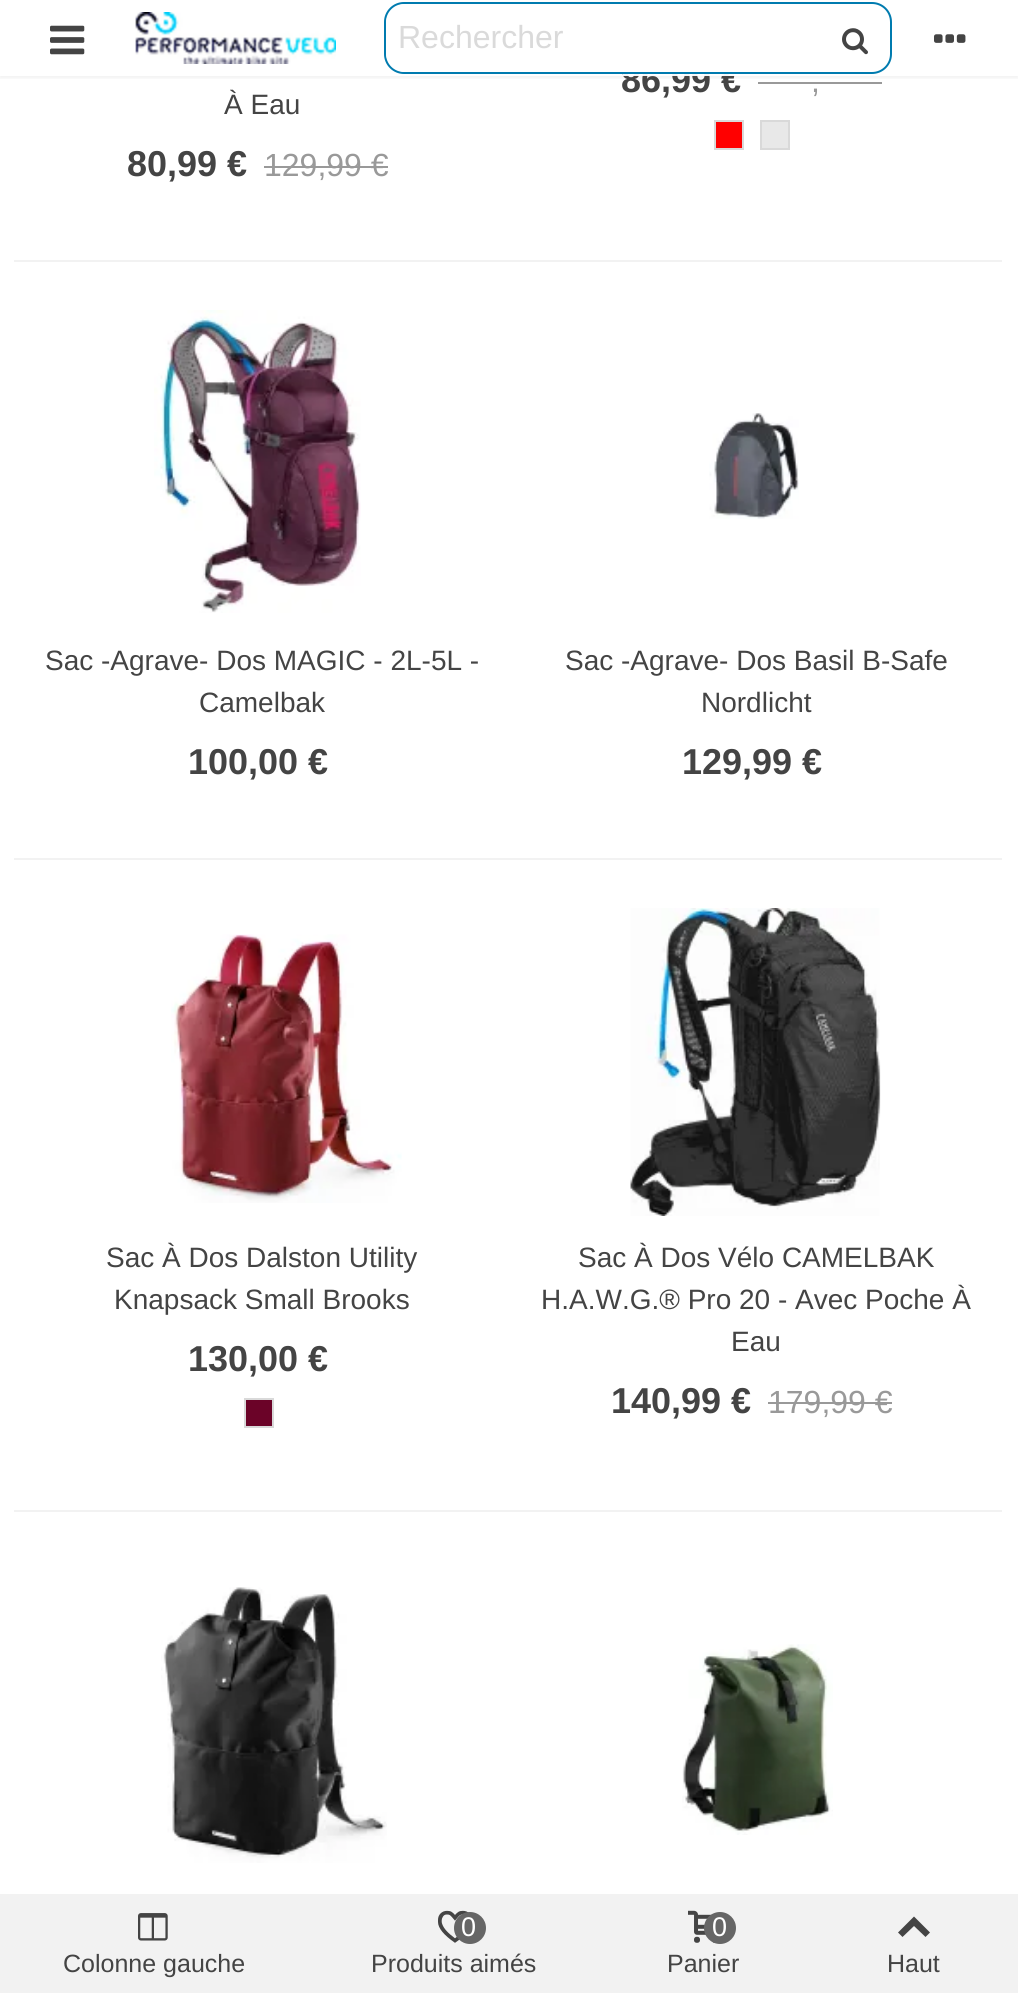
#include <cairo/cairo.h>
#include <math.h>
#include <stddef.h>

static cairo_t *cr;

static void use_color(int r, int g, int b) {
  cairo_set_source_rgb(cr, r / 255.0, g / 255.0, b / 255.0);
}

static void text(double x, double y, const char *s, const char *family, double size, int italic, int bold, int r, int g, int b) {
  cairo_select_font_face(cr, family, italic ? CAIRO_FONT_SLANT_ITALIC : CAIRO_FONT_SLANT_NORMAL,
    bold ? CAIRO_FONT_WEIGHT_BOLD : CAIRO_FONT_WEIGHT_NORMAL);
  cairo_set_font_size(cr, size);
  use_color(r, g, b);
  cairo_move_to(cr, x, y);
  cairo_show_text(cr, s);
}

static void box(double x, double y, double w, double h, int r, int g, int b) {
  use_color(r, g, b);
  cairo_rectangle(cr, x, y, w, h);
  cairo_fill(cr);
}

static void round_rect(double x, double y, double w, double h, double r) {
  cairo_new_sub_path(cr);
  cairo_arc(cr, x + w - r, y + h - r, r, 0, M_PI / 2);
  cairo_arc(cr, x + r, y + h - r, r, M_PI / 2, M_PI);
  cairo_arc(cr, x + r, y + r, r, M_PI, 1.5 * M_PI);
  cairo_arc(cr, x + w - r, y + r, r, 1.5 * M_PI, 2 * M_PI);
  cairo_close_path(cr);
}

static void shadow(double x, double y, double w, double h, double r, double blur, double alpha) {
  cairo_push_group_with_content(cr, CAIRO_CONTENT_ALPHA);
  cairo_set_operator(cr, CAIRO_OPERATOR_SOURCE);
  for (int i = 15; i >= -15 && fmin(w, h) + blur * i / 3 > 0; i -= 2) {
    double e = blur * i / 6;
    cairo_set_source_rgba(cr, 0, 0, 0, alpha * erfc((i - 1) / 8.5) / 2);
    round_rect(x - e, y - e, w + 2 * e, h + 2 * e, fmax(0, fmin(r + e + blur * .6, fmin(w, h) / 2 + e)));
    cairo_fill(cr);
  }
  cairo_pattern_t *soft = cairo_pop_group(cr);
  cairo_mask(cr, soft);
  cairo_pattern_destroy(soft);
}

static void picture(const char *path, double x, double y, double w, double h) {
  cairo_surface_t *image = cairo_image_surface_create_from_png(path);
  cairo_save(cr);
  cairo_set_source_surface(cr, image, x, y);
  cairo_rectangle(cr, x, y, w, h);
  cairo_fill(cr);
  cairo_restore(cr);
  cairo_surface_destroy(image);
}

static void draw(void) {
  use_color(255, 255, 255);
  cairo_paint(cr);
  box(758, 82, 124, 2, 153, 153, 153);
  cairo_save(cr);
  cairo_rectangle(cr, 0, 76, 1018, 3);
  cairo_clip(cr);
  use_color(0, 0, 0);
  shadow(0, 0, 1018, 76, 0, 4, 0.1);
  cairo_restore(cr);
  picture("img_01.png", 50, 25, 35, 30);
  picture("img_02.png", 135, 12, 201, 52);
  picture("img_04.png", 934, 34, 32, 9);
  use_color(255, 0, 0);
  cairo_rectangle(cr, 715, 121, 28, 28);
  cairo_fill_preserve(cr);
  use_color(217, 217, 217);
  cairo_stroke(cr);
  use_color(232, 232, 232);
  cairo_rectangle(cr, 761, 121, 28, 28);
  cairo_fill_preserve(cr);
  use_color(217, 217, 217);
  cairo_stroke(cr);
  box(264, 166, 124, 2, 153, 153, 153);
  box(14, 260, 988, 2, 242, 242, 242);
  picture("img_05.png", 154, 310, 207, 303);
  picture("img_06.png", 709, 413, 90, 106);
  box(14, 858, 988, 2, 242, 242, 242);
  picture("img_07.png", 171, 934, 231, 269);
  use_color(107, 3, 40);
  cairo_rectangle(cr, 245, 1399, 28, 28);
  cairo_fill_preserve(cr);
  use_color(217, 217, 217);
  cairo_stroke(cr);
  picture("img_08.png", 630, 908, 251, 308);
  box(768, 1402, 124, 2, 153, 153, 153);
  box(14, 1510, 988, 2, 242, 242, 242);
  picture("img_09.png", 161, 1587, 226, 276);
  picture("img_10.png", 682, 1644, 151, 191);
  box(0, 1894, 1018, 99, 242, 242, 242);
  picture("img_11.png", 138, 1913, 30, 28);
  picture("img_12.png", 438, 1910, 31, 33);
  use_color(102, 102, 102);
  cairo_arc(cr, 470, 1928, 16, 0, 2 * M_PI);
  cairo_fill(cr);
  picture("img_13.png", 688, 1910, 27, 33);
  cairo_arc(cr, 720, 1928, 16, 0, 2 * M_PI);
  cairo_fill(cr);
  use_color(68, 68, 68);
  cairo_new_path(cr);
  cairo_move_to(cr, 898, 1932.5);
  cairo_line_to(cr, 914, 1916.5);
  cairo_line_to(cr, 930, 1932.5);
  cairo_line_to(cr, 925.5, 1937);
  cairo_line_to(cr, 914, 1926);
  cairo_line_to(cr, 902.5, 1937);
  cairo_close_path(cr);
  cairo_fill(cr);
  text(621, 92, "86,99 €", "Liberation Sans", 36, 0, 1, 68, 68, 68);
  cairo_set_source_rgba(cr, 1, 1, 1, 0.95);
  cairo_rectangle(cr, 623, 66, 118, 10);
  cairo_fill(cr);
  use_color(255, 255, 255);
  round_rect(385, 3, 506, 70, 19);
  cairo_fill_preserve(cr);
  use_color(0, 123, 175);
  cairo_stroke(cr);
  picture("img_03.png", 842, 28, 26, 27);
  use_color(255, 255, 255);
  cairo_new_path(cr);
  cairo_move_to(cr, 406, 4);
  cairo_line_to(cr, 824, 4);
  cairo_line_to(cr, 824, 72);
  cairo_line_to(cr, 406, 72);
  cairo_curve_to(cr, 395, 72, 386, 63, 386, 52);
  cairo_line_to(cr, 386, 24);
  cairo_curve_to(cr, 386, 13, 395, 4, 406, 4);
  cairo_close_path(cr);
  cairo_fill(cr);
  text(398, 48, "Rechercher", "Liberation Sans", 32, 0, 0, 218, 218, 218);
  text(811, 92, ",", "Liberation Sans", 32, 0, 0, 153, 153, 153);
  text(224, 114, "À Eau", "Liberation Sans", 28, 0, 0, 68, 68, 68);
  text(127, 176, "80,99 €", "Liberation Sans", 36, 0, 1, 68, 68, 68);
  text(264, 176, "129,99 €", "Liberation Sans", 32, 0, 0, 153, 153, 153);
  text(45, 670, "Sac -Agrave- Dos MAGIC - 2L-5L -", "Liberation Sans", 28, 0, 0, 68, 68, 68);
  text(199, 712, "Camelbak", "Liberation Sans", 28, 0, 0, 68, 68, 68);
  text(188, 774, "100,00 €", "Liberation Sans", 36, 0, 1, 68, 68, 68);
  text(565, 670, "Sac -Agrave- Dos Basil B-Safe", "Liberation Sans", 28, 0, 0, 68, 68, 68);
  text(701, 712, "Nordlicht", "Liberation Sans", 28, 0, 0, 68, 68, 68);
  text(682, 774, "129,99 €", "Liberation Sans", 36, 0, 1, 68, 68, 68);
  text(106, 1267, "Sac À Dos Dalston Utility", "Liberation Sans", 28, 0, 0, 68, 68, 68);
  text(114, 1309, "Knapsack Small Brooks", "Liberation Sans", 28, 0, 0, 68, 68, 68);
  text(188, 1371, "130,00 €", "Liberation Sans", 36, 0, 1, 68, 68, 68);
  text(578, 1267, "Sac À Dos Vélo CAMELBAK", "Liberation Sans", 28, 0, 0, 68, 68, 68);
  text(541, 1309, "H.A.W.G.® Pro 20 - Avec Poche À", "Liberation Sans", 28, 0, 0, 68, 68, 68);
  text(731, 1351, "Eau", "Liberation Sans", 28, 0, 0, 68, 68, 68);
  text(611, 1413, "140,99 €", "Liberation Sans", 36, 0, 1, 68, 68, 68);
  text(768, 1413, "179,99 €", "Liberation Sans", 32, 0, 0, 153, 153, 153);
  text(63, 1972, "Colonne gauche", "Liberation Sans", 25, 0, 0, 68, 68, 68);
  text(461, 1936, "0", "Liberation Sans", 27, 0, 0, 255, 255, 255);
  text(371, 1972, "Produits aimés", "Liberation Sans", 25, 0, 0, 68, 68, 68);
  text(712, 1936, "0", "Liberation Sans", 27, 0, 0, 255, 255, 255);
  text(667, 1972, "Panier", "Liberation Sans", 25, 0, 0, 68, 68, 68);
  text(887, 1972, "Haut", "Liberation Sans", 25, 0, 0, 68, 68, 68);
}

int main(void) {
  cairo_surface_t *surface = cairo_image_surface_create(CAIRO_FORMAT_RGB24, 1018, 1993);
  cr = cairo_create(surface);
  cairo_font_options_t *options = cairo_font_options_create();
  cairo_font_options_set_hint_metrics(options, CAIRO_HINT_METRICS_OFF);
  cairo_font_options_set_hint_style(options, CAIRO_HINT_STYLE_NONE);
  cairo_set_font_options(cr, options);
  cairo_set_miter_limit(cr, 4);
  draw();
  cairo_surface_write_to_png(surface, "out.png");
  cairo_font_options_destroy(options);
  cairo_destroy(cr);
  cairo_surface_destroy(surface);
  return 0;
}
